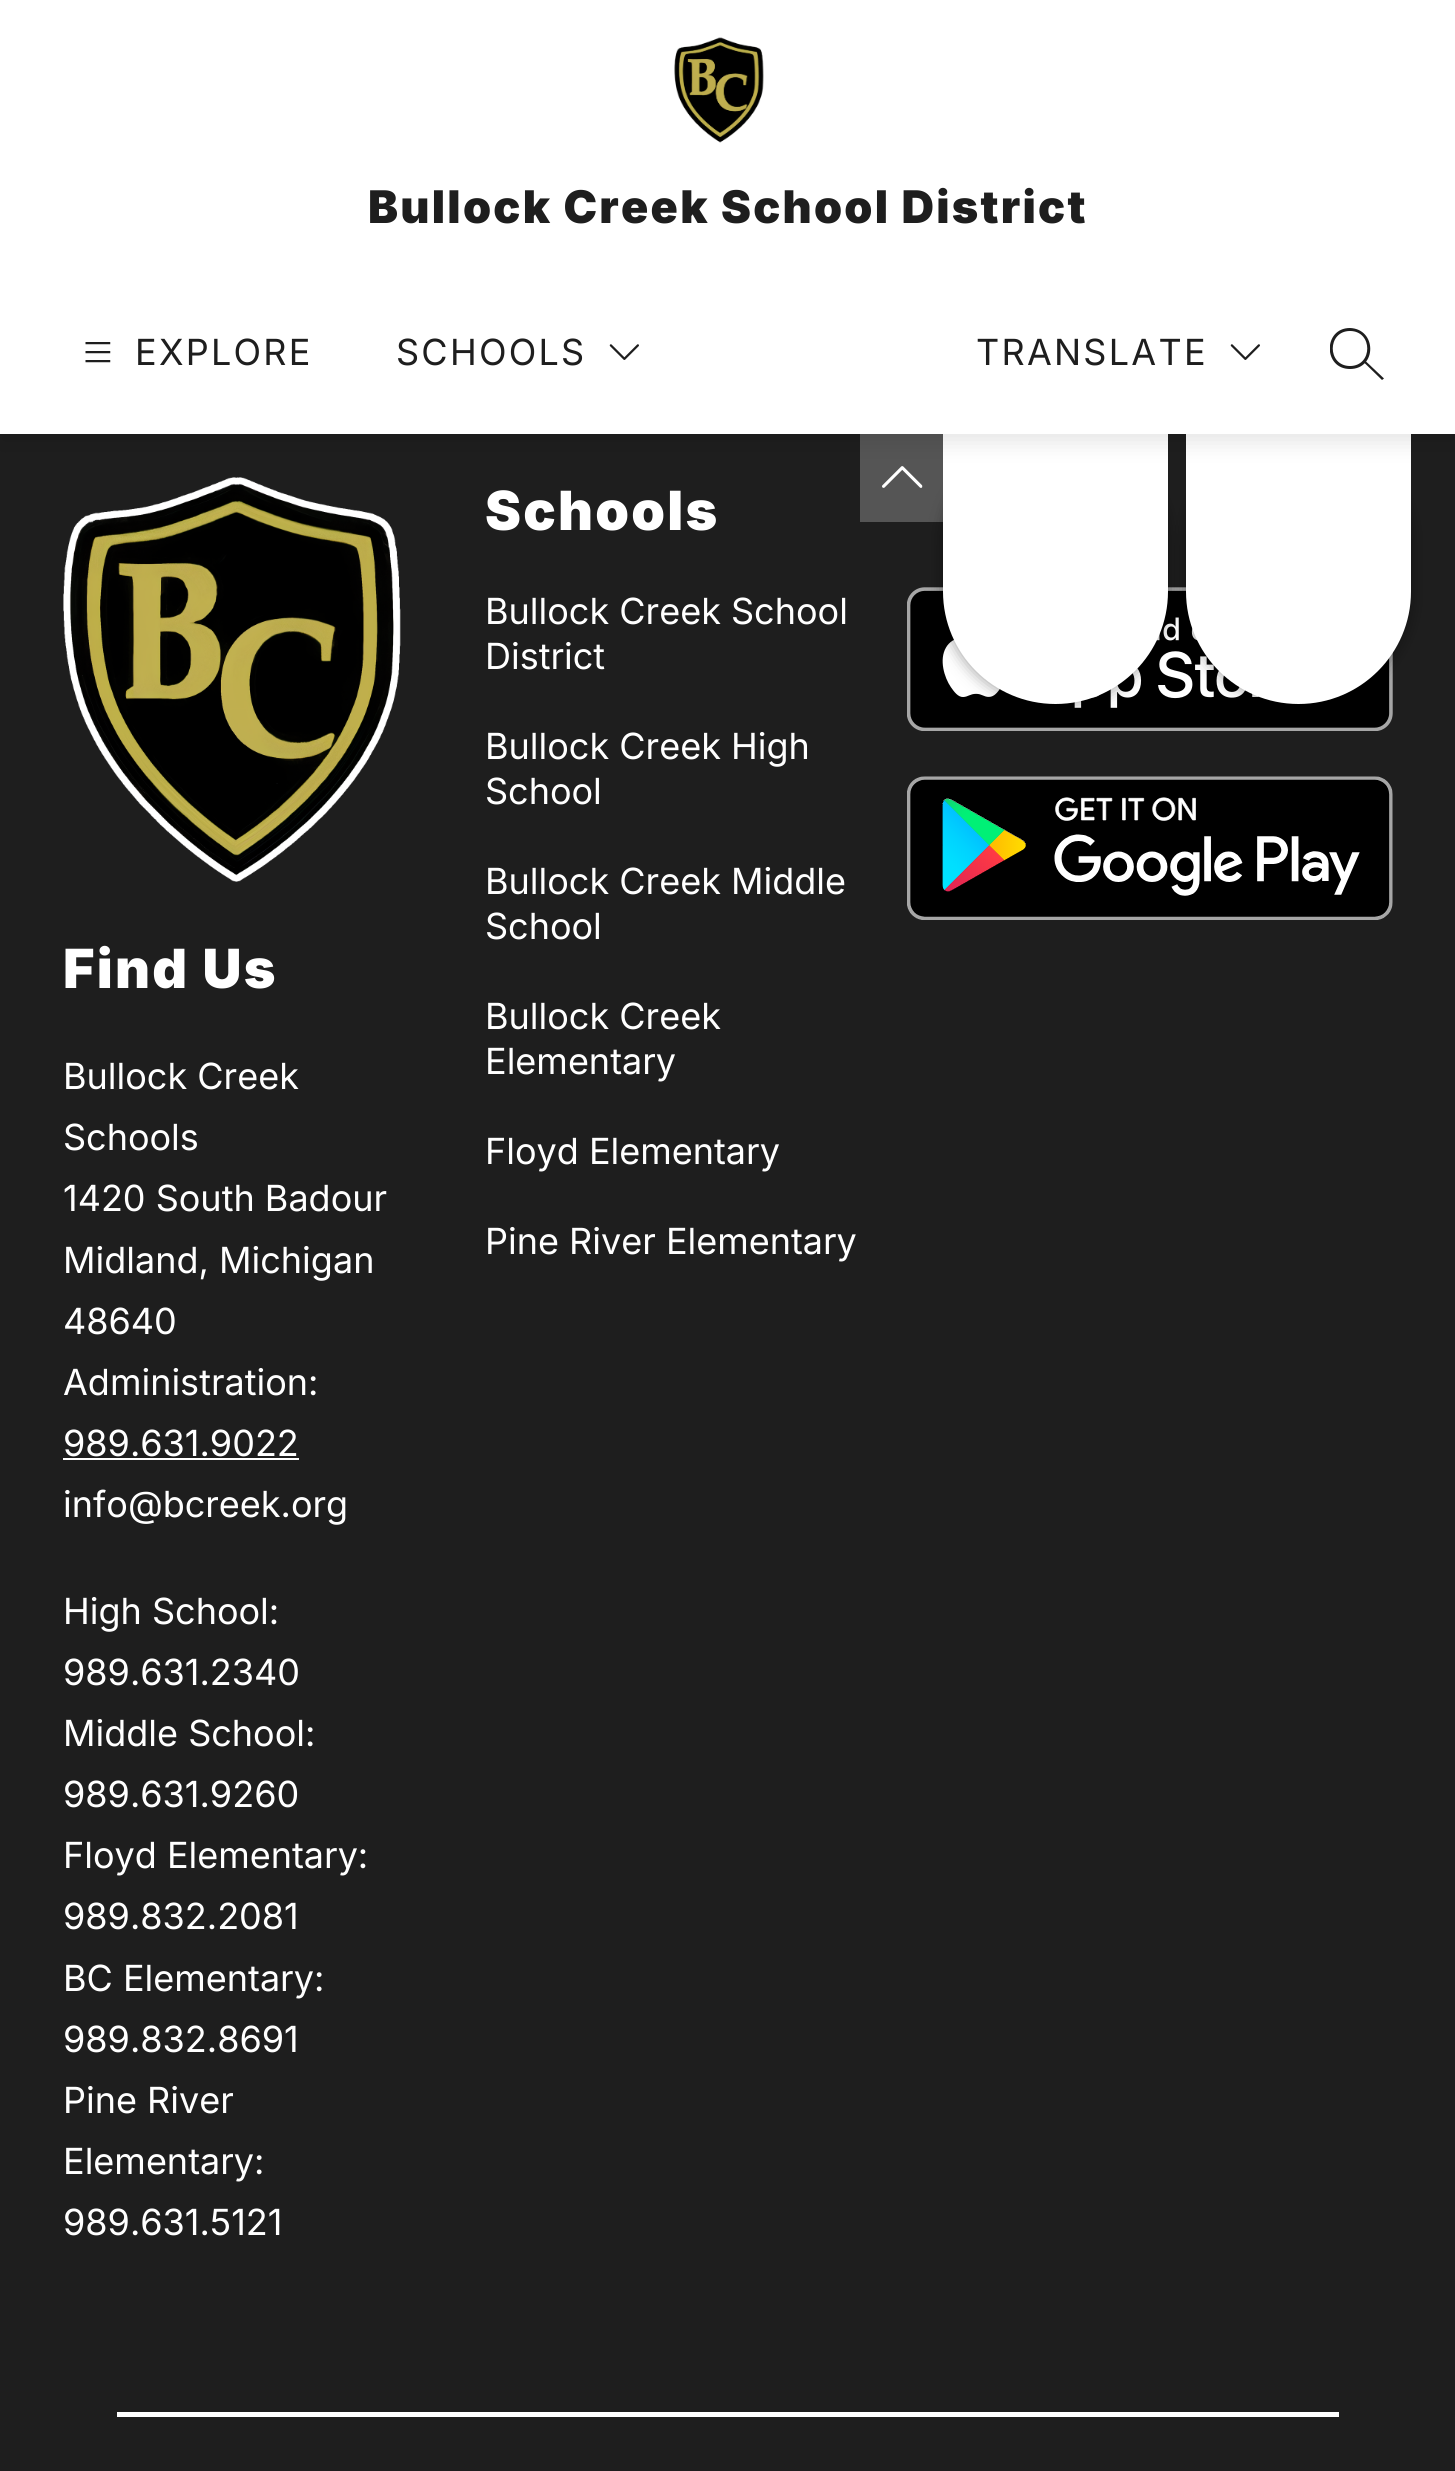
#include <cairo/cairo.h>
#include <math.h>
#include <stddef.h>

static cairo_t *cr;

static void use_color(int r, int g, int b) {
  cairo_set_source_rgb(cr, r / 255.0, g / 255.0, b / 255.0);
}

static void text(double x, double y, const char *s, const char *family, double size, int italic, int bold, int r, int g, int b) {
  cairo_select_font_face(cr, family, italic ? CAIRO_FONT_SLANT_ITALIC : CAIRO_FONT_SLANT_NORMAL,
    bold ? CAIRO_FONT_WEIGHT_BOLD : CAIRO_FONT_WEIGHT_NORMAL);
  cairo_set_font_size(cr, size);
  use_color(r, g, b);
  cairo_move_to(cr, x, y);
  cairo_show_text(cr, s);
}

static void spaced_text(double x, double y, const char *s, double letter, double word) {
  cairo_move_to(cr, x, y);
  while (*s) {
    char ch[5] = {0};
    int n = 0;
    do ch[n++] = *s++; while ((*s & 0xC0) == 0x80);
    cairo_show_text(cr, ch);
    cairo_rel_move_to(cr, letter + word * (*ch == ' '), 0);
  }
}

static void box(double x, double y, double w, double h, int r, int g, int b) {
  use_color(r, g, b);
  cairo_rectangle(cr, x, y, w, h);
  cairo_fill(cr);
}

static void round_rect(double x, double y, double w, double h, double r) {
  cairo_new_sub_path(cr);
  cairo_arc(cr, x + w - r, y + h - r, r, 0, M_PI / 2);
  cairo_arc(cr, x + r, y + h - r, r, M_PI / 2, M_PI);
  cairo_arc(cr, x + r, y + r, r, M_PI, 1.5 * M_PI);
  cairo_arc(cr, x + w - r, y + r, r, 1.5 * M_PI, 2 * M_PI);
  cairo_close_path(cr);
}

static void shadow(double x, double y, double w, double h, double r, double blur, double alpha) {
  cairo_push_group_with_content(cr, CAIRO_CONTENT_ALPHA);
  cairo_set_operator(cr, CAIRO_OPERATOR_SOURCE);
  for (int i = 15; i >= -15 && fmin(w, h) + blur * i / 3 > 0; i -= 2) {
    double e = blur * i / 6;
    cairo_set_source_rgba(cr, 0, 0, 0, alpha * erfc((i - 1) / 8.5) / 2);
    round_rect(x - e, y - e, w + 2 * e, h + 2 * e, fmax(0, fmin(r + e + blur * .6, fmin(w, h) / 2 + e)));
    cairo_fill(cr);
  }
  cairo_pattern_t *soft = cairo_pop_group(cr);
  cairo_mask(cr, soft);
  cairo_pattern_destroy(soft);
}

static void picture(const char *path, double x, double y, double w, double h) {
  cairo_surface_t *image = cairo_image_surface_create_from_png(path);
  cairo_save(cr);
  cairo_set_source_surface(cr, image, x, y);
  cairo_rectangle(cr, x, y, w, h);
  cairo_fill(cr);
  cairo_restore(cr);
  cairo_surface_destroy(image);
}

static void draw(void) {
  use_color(30, 30, 30);
  cairo_paint(cr);
  box(860, 434, 83, 88, 85, 85, 85);
  picture("img_05.png", 907, 587, 486, 144);
  use_color(0, 0, 0);
  shadow(943, 434, 225, 270, 112.5, 8, 0.4);
  picture("img_04.png", 882, 466, 41, 22);
  use_color(255, 255, 255);
  cairo_new_path(cr);
  cairo_move_to(cr, 943, 434);
  cairo_line_to(cr, 1168, 434);
  cairo_line_to(cr, 1168, 591.5);
  cairo_curve_to(cr, 1168, 653.5, 1117.5, 704, 1055.5, 704);
  cairo_curve_to(cr, 993.5, 704, 943, 653.5, 943, 591.5);
  cairo_close_path(cr);
  cairo_fill(cr);
  use_color(0, 0, 0);
  shadow(1186, 434, 225, 270, 112.5, 8, 0.4);
  use_color(255, 255, 255);
  cairo_new_path(cr);
  cairo_move_to(cr, 1186, 434);
  cairo_line_to(cr, 1411, 434);
  cairo_line_to(cr, 1411, 591.5);
  cairo_curve_to(cr, 1411, 653.5, 1360.5, 704, 1298.5, 704);
  cairo_curve_to(cr, 1236.5, 704, 1186, 653.5, 1186, 591.5);
  cairo_close_path(cr);
  cairo_fill(cr);
  use_color(0, 0, 0);
  shadow(0, 9, 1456, 434, 0, 11, 0.1);
  box(0, 0, 1455, 434, 255, 255, 255);
  picture("img_01.png", 674, 37, 90, 106);
  picture("img_02.png", 85, 342, 26, 21);
  picture("img_03.png", 609, 344, 30, 16);
  picture("img_03.png", 1230, 344, 30, 16);
  cairo_save(cr);
  cairo_rectangle(cr, 1330, 326, 54, 54);
  cairo_clip(cr);
  use_color(30, 30, 30);
  cairo_set_fill_rule(cr, CAIRO_FILL_RULE_EVEN_ODD);
  cairo_new_path(cr);
  cairo_move_to(cr, 1350, 366);
  cairo_curve_to(cr, 1373, 366, 1373, 331, 1350, 331);
  cairo_curve_to(cr, 1327, 331, 1327, 366, 1350, 366);
  cairo_close_path(cr);
  cairo_move_to(cr, 1350, 369);
  cairo_curve_to(cr, 1377, 369, 1377, 329, 1350, 328);
  cairo_curve_to(cr, 1323, 328, 1323, 369, 1350, 369);
  cairo_close_path(cr);
  cairo_fill(cr);
  cairo_restore(cr);
  use_color(30, 30, 30);
  cairo_set_fill_rule(cr, CAIRO_FILL_RULE_EVEN_ODD);
  cairo_new_path(cr);
  cairo_move_to(cr, 1382, 380);
  cairo_line_to(cr, 1364, 362.5);
  cairo_line_to(cr, 1365.5, 361);
  cairo_line_to(cr, 1384, 378.5);
  cairo_close_path(cr);
  cairo_fill(cr);
  picture("img_06.png", 907, 776, 486, 144);
  picture("img_07.png", 63, 477, 338, 405);
  box(63, 1458, 236, 2, 255, 255, 255);
  box(117, 2412, 1222, 5, 255, 255, 255);
  cairo_select_font_face(cr, "Inter Black", CAIRO_FONT_SLANT_NORMAL, CAIRO_FONT_WEIGHT_NORMAL);
  cairo_set_font_size(cr, 45);
  use_color(30, 30, 30);
  spaced_text(368, 223, "Bullock Creek School District", 2.25, 0);
  cairo_select_font_face(cr, "Inter", CAIRO_FONT_SLANT_NORMAL, CAIRO_FONT_WEIGHT_NORMAL);
  cairo_set_font_size(cr, 36);
  spaced_text(135, 365, "EXPLORE", 2.25, 0);
  spaced_text(396, 365, "SCHOOLS", 2.25, 0);
  spaced_text(976, 365, "TRANSLATE", 2.25, 0);
  cairo_select_font_face(cr, "Inter Black", CAIRO_FONT_SLANT_NORMAL, CAIRO_FONT_WEIGHT_NORMAL);
  cairo_set_font_size(cr, 54);
  use_color(255, 255, 255);
  spaced_text(485, 530, "Schools", 2.25, 0);
  text(485, 624, "Bullock Creek School", "Inter", 36, 0, 0, 255, 255, 255);
  text(485, 669, "District", "Inter", 36, 0, 0, 255, 255, 255);
  text(485, 759, "Bullock Creek High", "Inter", 36, 0, 0, 255, 255, 255);
  text(485, 804, "School", "Inter", 36, 0, 0, 255, 255, 255);
  text(485, 894, "Bullock Creek Middle", "Inter", 36, 0, 0, 255, 255, 255);
  text(485, 939, "School", "Inter", 36, 0, 0, 255, 255, 255);
  text(485, 1029, "Bullock Creek", "Inter", 36, 0, 0, 255, 255, 255);
  text(485, 1074, "Elementary", "Inter", 36, 0, 0, 255, 255, 255);
  text(485, 1164, "Floyd Elementary", "Inter", 36, 0, 0, 255, 255, 255);
  text(485, 1254, "Pine River Elementary", "Inter", 36, 0, 0, 255, 255, 255);
  cairo_select_font_face(cr, "Inter Black", CAIRO_FONT_SLANT_NORMAL, CAIRO_FONT_WEIGHT_NORMAL);
  cairo_set_font_size(cr, 54);
  spaced_text(63, 988, "Find Us", 2.25, 0);
  text(63, 1089, "Bullock Creek", "Inter", 36, 0, 0, 255, 255, 255);
  text(63, 1150, "Schools", "Inter", 36, 0, 0, 255, 255, 255);
  text(63, 1211, "1420 South Badour", "Inter", 36, 0, 0, 255, 255, 255);
  text(63, 1273, "Midland, Michigan", "Inter", 36, 0, 0, 255, 255, 255);
  text(63, 1334, "48640", "Inter", 36, 0, 0, 255, 255, 255);
  text(63, 1395, "Administration:", "Inter", 36, 0, 0, 255, 255, 255);
  text(63, 1456, "989.631.9022", "Inter", 36, 0, 0, 255, 255, 255);
  text(63, 1517, "info@bcreek.org", "Inter", 36, 0, 0, 255, 255, 255);
  text(63, 1624, "High School:", "Inter", 36, 0, 0, 255, 255, 255);
  text(63, 1685, "989.631.2340", "Inter", 36, 0, 0, 255, 255, 255);
  text(63, 1746, "Middle School:", "Inter", 36, 0, 0, 255, 255, 255);
  text(63, 1807, "989.631.9260", "Inter", 36, 0, 0, 255, 255, 255);
  text(63, 1868, "Floyd Elementary:", "Inter", 36, 0, 0, 255, 255, 255);
  text(63, 1929, "989.832.2081", "Inter", 36, 0, 0, 255, 255, 255);
  text(63, 1991, "BC Elementary:", "Inter", 36, 0, 0, 255, 255, 255);
  text(63, 2052, "989.832.8691", "Inter", 36, 0, 0, 255, 255, 255);
  text(63, 2113, "Pine River", "Inter", 36, 0, 0, 255, 255, 255);
  text(63, 2174, "Elementary:", "Inter", 36, 0, 0, 255, 255, 255);
  text(63, 2235, "989.631.5121", "Inter", 36, 0, 0, 255, 255, 255);
}

int main(void) {
  cairo_surface_t *surface = cairo_image_surface_create(CAIRO_FORMAT_RGB24, 1455, 2471);
  cr = cairo_create(surface);
  cairo_font_options_t *options = cairo_font_options_create();
  cairo_font_options_set_hint_metrics(options, CAIRO_HINT_METRICS_OFF);
  cairo_font_options_set_hint_style(options, CAIRO_HINT_STYLE_NONE);
  cairo_set_font_options(cr, options);
  cairo_set_miter_limit(cr, 4);
  draw();
  cairo_surface_write_to_png(surface, "out.png");
  cairo_font_options_destroy(options);
  cairo_destroy(cr);
  cairo_surface_destroy(surface);
  return 0;
}
